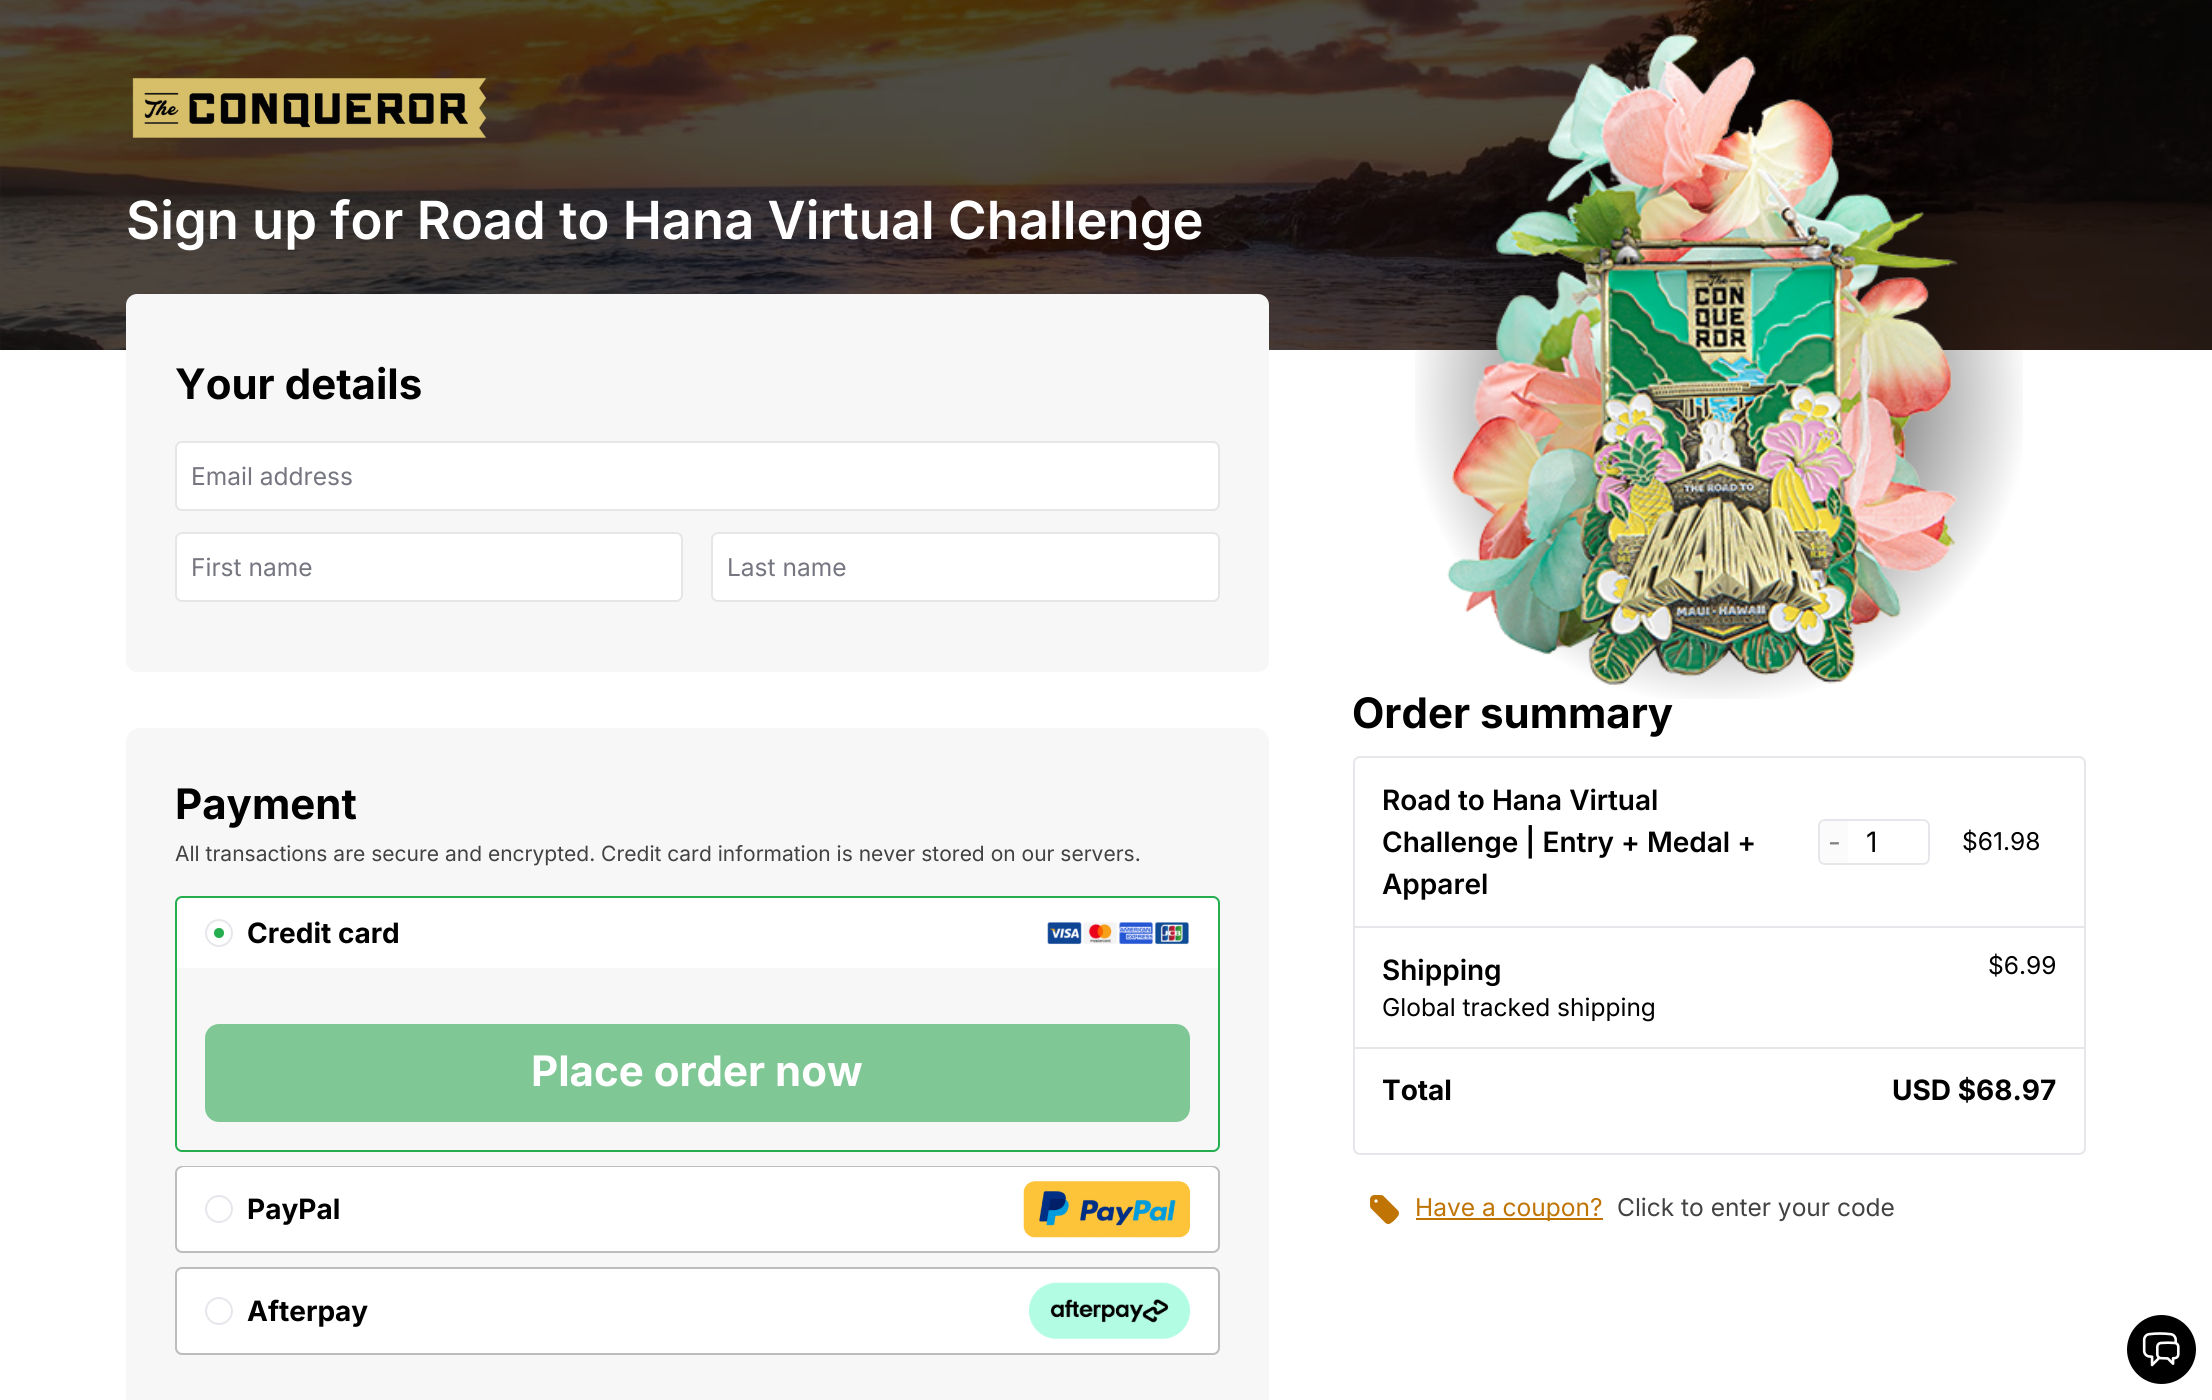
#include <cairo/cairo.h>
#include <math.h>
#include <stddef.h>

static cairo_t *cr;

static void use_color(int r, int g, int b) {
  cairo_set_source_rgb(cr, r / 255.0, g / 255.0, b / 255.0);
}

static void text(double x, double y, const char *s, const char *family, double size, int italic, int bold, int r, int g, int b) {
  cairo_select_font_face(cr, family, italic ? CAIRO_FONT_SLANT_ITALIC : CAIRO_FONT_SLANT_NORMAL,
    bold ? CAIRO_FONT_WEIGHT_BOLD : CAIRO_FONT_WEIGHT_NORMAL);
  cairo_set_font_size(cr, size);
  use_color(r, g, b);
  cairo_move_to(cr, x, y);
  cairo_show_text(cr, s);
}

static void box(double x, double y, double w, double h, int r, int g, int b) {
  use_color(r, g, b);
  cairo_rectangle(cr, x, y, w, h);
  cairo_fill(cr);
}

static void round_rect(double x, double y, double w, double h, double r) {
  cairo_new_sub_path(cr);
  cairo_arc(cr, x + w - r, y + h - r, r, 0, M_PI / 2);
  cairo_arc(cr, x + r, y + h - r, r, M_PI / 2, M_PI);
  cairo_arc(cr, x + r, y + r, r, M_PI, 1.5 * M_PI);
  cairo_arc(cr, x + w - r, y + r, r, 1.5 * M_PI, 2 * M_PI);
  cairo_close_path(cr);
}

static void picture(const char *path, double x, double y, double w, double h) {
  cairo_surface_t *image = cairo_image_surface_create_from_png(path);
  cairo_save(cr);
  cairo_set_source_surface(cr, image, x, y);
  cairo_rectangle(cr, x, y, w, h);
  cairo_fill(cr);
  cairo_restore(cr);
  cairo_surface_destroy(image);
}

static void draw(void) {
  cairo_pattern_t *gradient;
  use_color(255, 255, 255);
  cairo_paint(cr);
  picture("img_01.png", 0, 0, 2212, 350);
  picture("img_02.png", 132, 78, 355, 60);
  use_color(247, 247, 247);
  round_rect(126, 294, 1143, 378, 11);
  cairo_fill(cr);
  use_color(255, 255, 255);
  round_rect(176, 442, 1043, 68, 6);
  cairo_fill_preserve(cr);
  use_color(230, 230, 230);
  cairo_stroke(cr);
  use_color(255, 255, 255);
  round_rect(176, 533, 506, 68, 6);
  cairo_fill_preserve(cr);
  use_color(230, 230, 230);
  cairo_stroke(cr);
  use_color(255, 255, 255);
  round_rect(712, 533, 507, 68, 6);
  cairo_fill_preserve(cr);
  use_color(230, 230, 230);
  cairo_stroke(cr);
  use_color(247, 247, 247);
  round_rect(126, 728, 1143, 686, 14);
  cairo_fill(cr);
  round_rect(176, 897, 1043, 254, 6);
  use_color(36, 174, 78);
  cairo_stroke(cr);
  use_color(255, 255, 255);
  cairo_new_path(cr);
  cairo_move_to(cr, 184, 898);
  cairo_line_to(cr, 1211, 898);
  cairo_curve_to(cr, 1215, 898, 1218, 901, 1218, 905);
  cairo_line_to(cr, 1218, 968);
  cairo_line_to(cr, 177, 968);
  cairo_line_to(cr, 177, 905);
  cairo_curve_to(cr, 177, 901, 180, 898, 184, 898);
  cairo_close_path(cr);
  cairo_fill(cr);
  cairo_arc(cr, 219, 933, 13, 0, 2 * M_PI);
  use_color(229, 231, 235);
  cairo_stroke(cr);
  use_color(36, 174, 78);
  cairo_arc(cr, 219, 933, 5, 0, 2 * M_PI);
  cairo_fill(cr);
  picture("img_04.png", 1047, 922, 142, 23);
  use_color(247, 247, 247);
  cairo_new_path(cr);
  cairo_move_to(cr, 177, 968);
  cairo_line_to(cr, 1218, 968);
  cairo_line_to(cr, 1218, 1143);
  cairo_curve_to(cr, 1218, 1147, 1215, 1150, 1211, 1150);
  cairo_line_to(cr, 184, 1150);
  cairo_curve_to(cr, 180, 1150, 177, 1147, 177, 1143);
  cairo_close_path(cr);
  cairo_fill(cr);
  use_color(128, 199, 150);
  round_rect(205, 1024, 985, 98, 14);
  cairo_fill(cr);
  round_rect(176, 1167, 1043, 85, 6);
  use_color(189, 189, 189);
  cairo_stroke(cr);
  use_color(255, 255, 255);
  round_rect(177, 1167, 1041, 84, 7);
  cairo_fill(cr);
  cairo_arc(cr, 219, 1209, 13, 0, 2 * M_PI);
  use_color(229, 231, 235);
  cairo_stroke(cr);
  picture("img_05.png", 1023, 1181, 167, 57);
  round_rect(176, 1268, 1043, 86, 6);
  use_color(189, 189, 189);
  cairo_stroke(cr);
  use_color(255, 255, 255);
  round_rect(177, 1269, 1041, 84, 7);
  cairo_fill(cr);
  cairo_arc(cr, 219, 1311, 13, 0, 2 * M_PI);
  use_color(229, 231, 235);
  cairo_stroke(cr);
  picture("img_06.png", 1029, 1282, 161, 57);
  round_rect(1354, 757, 731, 397, 6);
  cairo_stroke(cr);
  box(1355, 926, 729, 2, 229, 231, 235);
  round_rect(1819, 820, 110, 44, 6);
  cairo_stroke(cr);
  cairo_set_source_rgba(cr, 0.969, 0.969, 0.969, 0.5);
  cairo_new_path(cr);
  cairo_move_to(cr, 1825, 821);
  cairo_line_to(cr, 1848, 821);
  cairo_line_to(cr, 1848, 863);
  cairo_line_to(cr, 1825, 863);
  cairo_curve_to(cr, 1822, 863, 1820, 861, 1820, 858);
  cairo_line_to(cr, 1820, 826);
  cairo_curve_to(cr, 1820, 823, 1822, 821, 1825, 821);
  cairo_close_path(cr);
  cairo_fill(cr);
  box(1355, 1047, 729, 2, 229, 231, 235);
  picture("img_07.png", 1370, 1195, 29, 29);
  box(1416, 1218, 187, 2, 191, 116, 4);
  use_color(0, 0, 0);
  cairo_arc(cr, 2161.5, 1349.5, 35.5, 0, 2 * M_PI);
  cairo_fill_preserve(cr);
  use_color(255, 255, 255);
  cairo_stroke(cr);
  picture("img_08.png", 2142, 1332, 38, 35);
  text(126, 239, "Sign up for Road to Hana Virtual Challenge", "Inter SemiBold", 52.5, 0, 0, 255, 255, 255);
  text(175, 399, "Your details", "Inter", 42, 0, 1, 0, 0, 0);
  text(191, 485, "Email address", "Inter", 24.5, 0, 0, 117, 118, 128);
  text(191, 576, "First name", "Inter", 24.5, 0, 0, 117, 118, 128);
  text(727, 576, "Last name", "Inter", 24.5, 0, 0, 117, 118, 128);
  text(175, 819, "Payment", "Inter", 42, 0, 1, 0, 0, 0);
  text(175, 861, "All transactions are secure and encrypted. Credit card information is never stored on our servers.", "Inter", 21, 0, 0, 66, 66, 66);
  text(247, 943, "Credit card", "Inter", 28, 0, 1, 0, 0, 0);
  text(531, 1086, "Place order now", "Inter", 42, 0, 1, 255, 255, 255);
  text(247, 1219, "PayPal", "Inter", 28, 0, 1, 0, 0, 0);
  text(247, 1321, "Afterpay", "Inter", 28, 0, 1, 0, 0, 0);
  text(1352, 728, "Order summary", "Inter", 42, 0, 1, 0, 0, 0);
  gradient = cairo_pattern_create_radial(1719, 395, 0, 1719, 395, 367);
  cairo_pattern_add_color_stop_rgba(gradient, 0, 0, 0, 0, 1);
  cairo_pattern_add_color_stop_rgba(gradient, 0.85, 0, 0, 0, 0);
  cairo_set_source(cr, gradient);
  cairo_pattern_destroy(gradient);
  cairo_rectangle(cr, 1415, 102, 608, 597);
  cairo_fill(cr);
  picture("img_03.png", 1447, 34, 511, 651);
  text(1382, 810, "Road to Hana Virtual", "Inter SemiBold", 28, 0, 0, 0, 0, 0);
  text(1382, 852, "Challenge | Entry + Medal +", "Inter SemiBold", 28, 0, 0, 0, 0, 0);
  text(1382, 894, "Apparel", "Inter SemiBold", 28, 0, 0, 0, 0, 0);
  text(1828, 852, "-", "Inter", 28, 0, 0, 128, 128, 128);
  text(1866, 852, "1", "Inter", 28, 0, 0, 0, 0, 0);
  text(1962, 850, "$61.98", "Inter", 24.5, 0, 0, 0, 0, 0);
  text(1382, 980, "Shipping", "Inter SemiBold", 28, 0, 0, 0, 0, 0);
  text(1382, 1016, "Global tracked shipping", "Inter", 24.5, 0, 0, 0, 0, 0);
  text(1988, 974, "$6.99", "Inter", 24.5, 0, 0, 0, 0, 0);
  text(1382, 1100, "Total", "Inter", 28, 0, 1, 0, 0, 0);
  text(1892, 1100, "USD $68.97", "Inter", 28, 0, 1, 0, 0, 0);
  text(1415, 1216, "Have a coupon?", "Inter", 24.5, 0, 0, 191, 116, 4);
  text(1617, 1216, "Click to enter your code", "Inter", 24.5, 0, 0, 66, 66, 66);
}

int main(void) {
  cairo_surface_t *surface = cairo_image_surface_create(CAIRO_FORMAT_RGB24, 2212, 1400);
  cr = cairo_create(surface);
  cairo_font_options_t *options = cairo_font_options_create();
  cairo_font_options_set_hint_metrics(options, CAIRO_HINT_METRICS_OFF);
  cairo_font_options_set_hint_style(options, CAIRO_HINT_STYLE_NONE);
  cairo_set_font_options(cr, options);
  cairo_set_miter_limit(cr, 4);
  draw();
  cairo_surface_write_to_png(surface, "out.png");
  cairo_font_options_destroy(options);
  cairo_destroy(cr);
  cairo_surface_destroy(surface);
  return 0;
}
